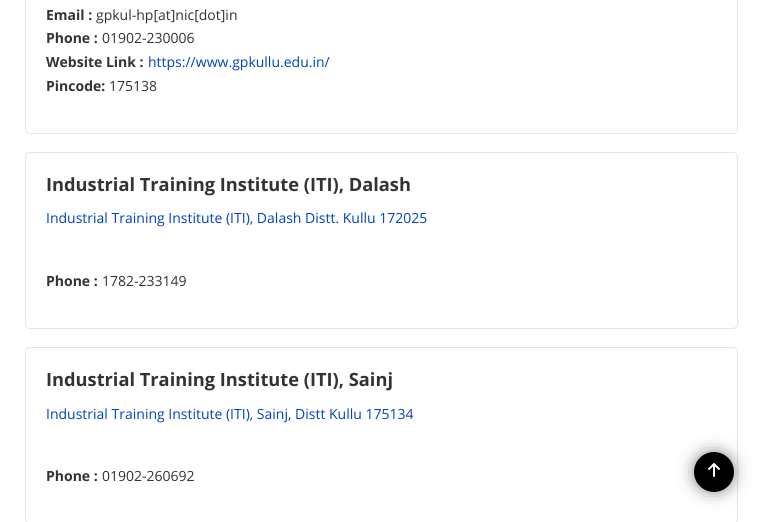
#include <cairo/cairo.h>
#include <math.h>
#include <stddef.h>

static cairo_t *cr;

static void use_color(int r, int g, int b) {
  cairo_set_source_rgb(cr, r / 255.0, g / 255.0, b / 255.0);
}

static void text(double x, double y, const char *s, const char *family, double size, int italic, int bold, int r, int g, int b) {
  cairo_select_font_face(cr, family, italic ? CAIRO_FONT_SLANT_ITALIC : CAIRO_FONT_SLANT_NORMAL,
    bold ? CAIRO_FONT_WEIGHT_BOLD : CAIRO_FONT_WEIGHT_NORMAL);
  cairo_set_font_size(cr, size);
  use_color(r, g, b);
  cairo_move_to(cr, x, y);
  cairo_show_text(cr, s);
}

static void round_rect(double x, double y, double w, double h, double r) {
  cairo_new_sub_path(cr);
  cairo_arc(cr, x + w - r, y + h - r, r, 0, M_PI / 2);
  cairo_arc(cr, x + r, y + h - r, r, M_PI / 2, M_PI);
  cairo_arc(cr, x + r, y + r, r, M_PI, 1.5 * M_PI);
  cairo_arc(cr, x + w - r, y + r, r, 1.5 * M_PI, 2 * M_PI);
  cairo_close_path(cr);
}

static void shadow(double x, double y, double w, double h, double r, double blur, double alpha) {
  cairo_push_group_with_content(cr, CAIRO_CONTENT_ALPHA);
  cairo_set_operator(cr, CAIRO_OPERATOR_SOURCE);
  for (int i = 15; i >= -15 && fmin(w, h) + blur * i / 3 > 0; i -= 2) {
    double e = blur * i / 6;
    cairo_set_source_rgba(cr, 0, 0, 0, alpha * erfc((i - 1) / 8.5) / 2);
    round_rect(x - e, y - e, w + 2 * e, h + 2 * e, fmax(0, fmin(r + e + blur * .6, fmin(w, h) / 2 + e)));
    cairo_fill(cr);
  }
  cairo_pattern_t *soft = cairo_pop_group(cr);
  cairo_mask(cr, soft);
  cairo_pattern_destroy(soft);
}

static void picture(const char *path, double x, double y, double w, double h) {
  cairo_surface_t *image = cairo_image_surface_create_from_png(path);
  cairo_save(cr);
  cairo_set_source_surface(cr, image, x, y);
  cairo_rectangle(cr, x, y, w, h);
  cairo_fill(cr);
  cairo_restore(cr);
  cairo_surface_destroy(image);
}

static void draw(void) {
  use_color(255, 255, 255);
  cairo_paint(cr);
  round_rect(25.5, -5.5, 712, 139, 4.5);
  use_color(230, 230, 230);
  cairo_set_line_width(cr, 1);
  cairo_stroke(cr);
  round_rect(25.5, 152.5, 712, 176, 4.5);
  cairo_stroke(cr);
  round_rect(25.5, 347.5, 712, 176, 4.5);
  cairo_stroke(cr);
  use_color(60, 60, 60);
  shadow(699, 457, 30, 30, 15, 9.5, 1);
  use_color(0, 0, 0);
  cairo_arc(cr, 714, 472, 20, 0, 2 * M_PI);
  cairo_fill(cr);
  picture("img_01.png", 708, 463, 12, 14);
  text(46, 20, "Email :", "Open Sans", 14, 0, 1, 51, 51, 51);
  text(96, 20, "gpkul-hp[at]nic[dot]in", "Open Sans", 14, 0, 0, 51, 51, 51);
  text(46, 43, "Phone :", "Open Sans", 14, 0, 1, 51, 51, 51);
  text(102, 43, "01902-230006", "Open Sans", 14, 0, 0, 51, 51, 51);
  text(46, 67, "Website Link :", "Open Sans", 14, 0, 1, 51, 51, 51);
  text(148, 67, "https://www.gpkullu.edu.in/", "Open Sans", 14, 0, 0, 0, 66, 191);
  text(46, 91, "Pincode:", "Open Sans", 14, 0, 1, 51, 51, 51);
  text(109, 91, "175138", "Open Sans", 14, 0, 0, 51, 51, 51);
  text(46, 191, "Industrial Training Institute (ITI), Dalash", "Open Sans", 18.25, 0, 1, 51, 51, 51);
  text(46, 223, "Industrial Training Institute (ITI), Dalash Distt. Kullu 172025", "Open Sans", 14, 0, 0, 0, 66, 191);
  text(46, 286, "Phone :", "Open Sans", 14, 0, 1, 51, 51, 51);
  text(102, 286, "1782-233149", "Open Sans", 14, 0, 0, 51, 51, 51);
  text(46, 386, "Industrial Training Institute (ITI), Sainj", "Open Sans", 18.25, 0, 1, 51, 51, 51);
  text(46, 419, "Industrial Training Institute (ITI), Sainj, Distt Kullu 175134", "Open Sans", 14, 0, 0, 0, 66, 191);
  text(46, 481, "Phone :", "Open Sans", 14, 0, 1, 51, 51, 51);
  text(102, 481, "01902-260692", "Open Sans", 14, 0, 0, 51, 51, 51);
}

int main(void) {
  cairo_surface_t *surface = cairo_image_surface_create(CAIRO_FORMAT_RGB24, 764, 522);
  cr = cairo_create(surface);
  cairo_font_options_t *options = cairo_font_options_create();
  cairo_font_options_set_hint_metrics(options, CAIRO_HINT_METRICS_OFF);
  cairo_font_options_set_hint_style(options, CAIRO_HINT_STYLE_NONE);
  cairo_set_font_options(cr, options);
  cairo_set_miter_limit(cr, 4);
  draw();
  cairo_surface_write_to_png(surface, "out.png");
  cairo_font_options_destroy(options);
  cairo_destroy(cr);
  cairo_surface_destroy(surface);
  return 0;
}
